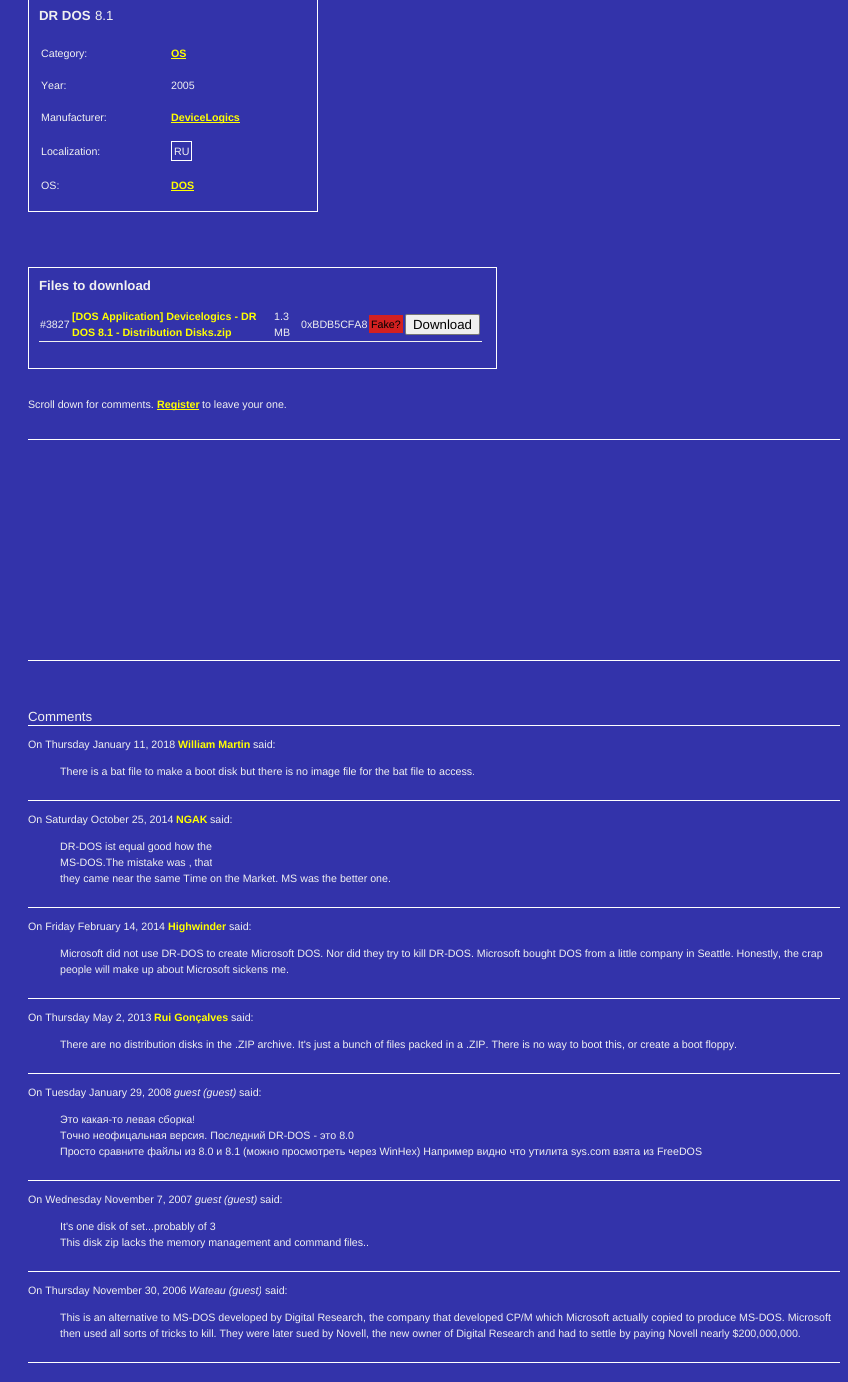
#include <cairo/cairo.h>
#include <math.h>
#include <stddef.h>

static cairo_t *cr;

static void use_color(int r, int g, int b) {
  cairo_set_source_rgb(cr, r / 255.0, g / 255.0, b / 255.0);
}

static void text(double x, double y, const char *s, const char *family, double size, int italic, int bold, int r, int g, int b) {
  cairo_select_font_face(cr, family, italic ? CAIRO_FONT_SLANT_ITALIC : CAIRO_FONT_SLANT_NORMAL,
    bold ? CAIRO_FONT_WEIGHT_BOLD : CAIRO_FONT_WEIGHT_NORMAL);
  cairo_set_font_size(cr, size);
  use_color(r, g, b);
  cairo_move_to(cr, x, y);
  cairo_show_text(cr, s);
}

static void box(double x, double y, double w, double h, int r, int g, int b) {
  use_color(r, g, b);
  cairo_rectangle(cr, x, y, w, h);
  cairo_fill(cr);
}

static void round_rect(double x, double y, double w, double h, double r) {
  cairo_new_sub_path(cr);
  cairo_arc(cr, x + w - r, y + h - r, r, 0, M_PI / 2);
  cairo_arc(cr, x + r, y + h - r, r, M_PI / 2, M_PI);
  cairo_arc(cr, x + r, y + r, r, M_PI, 1.5 * M_PI);
  cairo_arc(cr, x + w - r, y + r, r, 1.5 * M_PI, 2 * M_PI);
  cairo_close_path(cr);
}

static void draw(void) {
  use_color(51, 51, 170);
  cairo_paint(cr);
  cairo_rectangle(cr, 28.5, -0.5, 289, 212);
  use_color(255, 255, 255);
  cairo_set_line_width(cr, 1);
  cairo_stroke(cr);
  box(171, 58, 15, 1, 255, 255, 0);
  box(171, 122, 69, 1, 255, 255, 0);
  cairo_rectangle(cr, 171.5, 141.5, 20, 19);
  use_color(255, 255, 255);
  cairo_stroke(cr);
  box(171, 190, 23, 1, 255, 255, 0);
  cairo_rectangle(cr, 28.5, 267.5, 468, 101);
  use_color(255, 255, 255);
  cairo_stroke(cr);
  box(369, 315, 34, 18, 211, 32, 32);
  box(39, 341, 443, 1, 240, 240, 240);
  use_color(239, 239, 239);
  round_rect(405.5, 314.5, 74, 20, 1.5);
  cairo_fill_preserve(cr);
  use_color(118, 118, 118);
  cairo_stroke(cr);
  box(157, 409, 42, 1, 255, 255, 0);
  box(28, 439, 812, 1, 255, 255, 255);
  box(28, 660, 812, 1, 255, 255, 255);
  box(28, 725, 812, 1, 255, 255, 255);
  box(28, 800, 812, 1, 255, 255, 255);
  box(28, 907, 812, 1, 255, 255, 255);
  box(28, 998, 812, 1, 255, 255, 255);
  box(28, 1073, 812, 1, 255, 255, 255);
  box(28, 1180, 812, 1, 255, 255, 255);
  box(28, 1271, 812, 1, 255, 255, 255);
  box(28, 1362, 812, 1, 255, 255, 255);
  text(39, 20, "DR DOS", "Liberation Sans", 13.25, 0, 1, 240, 240, 240);
  text(95, 20, "8.1", "Liberation Sans", 13.25, 0, 0, 240, 240, 240);
  text(41, 57, "Category:", "Liberation Sans", 10.67, 0, 0, 240, 240, 240);
  text(171, 57, "OS", "Liberation Sans", 10.67, 0, 1, 255, 255, 0);
  text(41, 89, "Year:", "Liberation Sans", 10.67, 0, 0, 240, 240, 240);
  text(171, 89, "2005", "Liberation Sans", 10.67, 0, 0, 240, 240, 240);
  text(41, 121, "Manufacturer:", "Liberation Sans", 10.67, 0, 0, 240, 240, 240);
  text(171, 121, "DeviceLogics", "Liberation Sans", 10.67, 0, 1, 255, 255, 0);
  text(41, 155, "Localization:", "Liberation Sans", 10.67, 0, 0, 240, 240, 240);
  text(174, 155, "RU", "Liberation Sans", 10.67, 0, 0, 240, 240, 240);
  text(41, 189, "OS:", "Liberation Sans", 10.67, 0, 0, 240, 240, 240);
  text(171, 189, "DOS", "Liberation Sans", 10.67, 0, 1, 255, 255, 0);
  text(39, 290, "Files to download", "Liberation Sans", 13.25, 0, 1, 240, 240, 240);
  text(40, 328, "#3827", "Liberation Sans", 10.67, 0, 0, 240, 240, 240);
  text(72, 320, "[DOS Application] Devicelogics - DR", "Liberation Sans", 10.67, 0, 1, 255, 255, 0);
  text(72, 336, "DOS 8.1 - Distribution Disks.zip", "Liberation Sans", 10.67, 0, 1, 255, 255, 0);
  text(274, 320, "1.3", "Liberation Sans", 10.67, 0, 0, 240, 240, 240);
  text(274, 336, "MB", "Liberation Sans", 10.67, 0, 0, 240, 240, 240);
  text(301, 328, "0xBDB5CFA8", "Liberation Sans", 10.67, 0, 0, 240, 240, 240);
  text(371, 328, "Fake?", "Liberation Sans", 10.67, 0, 0, 0, 0, 0);
  text(413, 329, "Download", "Liberation Sans", 13.25, 0, 0, 0, 0, 0);
  text(28, 408, "Scroll down for comments.", "Liberation Sans", 10.67, 0, 0, 240, 240, 240);
  text(157, 408, "Register", "Liberation Sans", 10.67, 0, 1, 255, 255, 0);
  text(202, 408, "to leave your one.", "Liberation Sans", 10.67, 0, 0, 240, 240, 240);
  text(28, 721, "Comments", "Liberation Sans", 13.25, 0, 0, 240, 240, 240);
  text(28, 748, "On Thursday January 11, 2018", "Liberation Sans", 10.67, 0, 0, 240, 240, 240);
  text(178, 748, "William Martin", "Liberation Sans", 10.67, 0, 1, 255, 255, 0);
  text(253, 748, "said:", "Liberation Sans", 10.67, 0, 0, 240, 240, 240);
  text(60, 775, "There is a bat file to make a boot disk but there is no image file for the bat file to access.", "Liberation Sans", 10.67, 0, 0, 240, 240, 240);
  text(28, 823, "On Saturday October 25, 2014", "Liberation Sans", 10.67, 0, 0, 240, 240, 240);
  text(176, 823, "NGAK", "Liberation Sans", 10.67, 0, 1, 255, 255, 0);
  text(210, 823, "said:", "Liberation Sans", 10.67, 0, 0, 240, 240, 240);
  text(60, 850, "DR-DOS ist equal good how the", "Liberation Sans", 10.67, 0, 0, 240, 240, 240);
  text(60, 866, "MS-DOS.The mistake was , that", "Liberation Sans", 10.67, 0, 0, 240, 240, 240);
  text(60, 882, "they came near the same Time on the Market. MS was the better one.", "Liberation Sans", 10.67, 0, 0, 240, 240, 240);
  text(28, 930, "On Friday February 14, 2014", "Liberation Sans", 10.67, 0, 0, 240, 240, 240);
  text(168, 930, "Highwinder", "Liberation Sans", 10.67, 0, 1, 255, 255, 0);
  text(229, 930, "said:", "Liberation Sans", 10.67, 0, 0, 240, 240, 240);
  text(60, 957, "Microsoft did not use DR-DOS to create Microsoft DOS. Nor did they try to kill DR-DOS. Microsoft bought DOS from a little company in Seattle. Honestly, the crap", "Liberation Sans", 10.67, 0, 0, 240, 240, 240);
  text(60, 973, "people will make up about Microsoft sickens me.", "Liberation Sans", 10.67, 0, 0, 240, 240, 240);
  text(28, 1021, "On Thursday May 2, 2013", "Liberation Sans", 10.67, 0, 0, 240, 240, 240);
  text(154, 1021, "Rui Gonçalves", "Liberation Sans", 10.67, 0, 1, 255, 255, 0);
  text(231, 1021, "said:", "Liberation Sans", 10.67, 0, 0, 240, 240, 240);
  text(60, 1048, "There are no distribution disks in the .ZIP archive. It's just a bunch of files packed in a .ZIP. There is no way to boot this, or create a boot floppy.", "Liberation Sans", 10.67, 0, 0, 240, 240, 240);
  text(28, 1096, "On Tuesday January 29, 2008", "Liberation Sans", 10.67, 0, 0, 240, 240, 240);
  text(174, 1096, "guest (guest)", "Liberation Sans", 10.67, 1, 0, 240, 240, 240);
  text(239, 1096, "said:", "Liberation Sans", 10.67, 0, 0, 240, 240, 240);
  text(60, 1123, "Это какая-то левая сборка!", "Liberation Sans", 10.67, 0, 0, 240, 240, 240);
  text(60, 1139, "Точно неофицальная версия. Последний DR-DOS - это 8.0", "Liberation Sans", 10.67, 0, 0, 240, 240, 240);
  text(60, 1155, "Просто сравните файлы из 8.0 и 8.1 (можно просмотреть через WinHex) Например видно что утилита sys.com взята из FreeDOS", "Liberation Sans", 10.67, 0, 0, 240, 240, 240);
  text(28, 1203, "On Wednesday November 7, 2007", "Liberation Sans", 10.67, 0, 0, 240, 240, 240);
  text(195, 1203, "guest (guest)", "Liberation Sans", 10.67, 1, 0, 240, 240, 240);
  text(260, 1203, "said:", "Liberation Sans", 10.67, 0, 0, 240, 240, 240);
  text(60, 1230, "It's one disk of set...probably of 3", "Liberation Sans", 10.67, 0, 0, 240, 240, 240);
  text(60, 1246, "This disk zip lacks the memory management and command files..", "Liberation Sans", 10.67, 0, 0, 240, 240, 240);
  text(28, 1294, "On Thursday November 30, 2006", "Liberation Sans", 10.67, 0, 0, 240, 240, 240);
  text(189, 1294, "Wateau (guest)", "Liberation Sans", 10.67, 1, 0, 240, 240, 240);
  text(265, 1294, "said:", "Liberation Sans", 10.67, 0, 0, 240, 240, 240);
  text(60, 1321, "This is an alternative to MS-DOS developed by Digital Research,", "Liberation Sans", 10.67, 0, 0, 240, 240, 240);
  text(369, 1321, "the company that developed CP/M which Microsoft actually copied to produce MS-DOS. Microsoft", "Liberation Sans", 10.67, 0, 0, 240, 240, 240);
  text(60, 1337, "then used all sorts of tricks to kill. They were later sued by Novell, the new owner of Digital Research and had to settle by paying Novell nearly $200,000,000.", "Liberation Sans", 10.67, 0, 0, 240, 240, 240);
}

int main(void) {
  cairo_surface_t *surface = cairo_image_surface_create(CAIRO_FORMAT_RGB24, 848, 1382);
  cr = cairo_create(surface);
  cairo_font_options_t *options = cairo_font_options_create();
  cairo_font_options_set_hint_metrics(options, CAIRO_HINT_METRICS_OFF);
  cairo_font_options_set_hint_style(options, CAIRO_HINT_STYLE_NONE);
  cairo_set_font_options(cr, options);
  cairo_set_miter_limit(cr, 4);
  draw();
  cairo_surface_write_to_png(surface, "out.png");
  cairo_font_options_destroy(options);
  cairo_destroy(cr);
  cairo_surface_destroy(surface);
  return 0;
}
